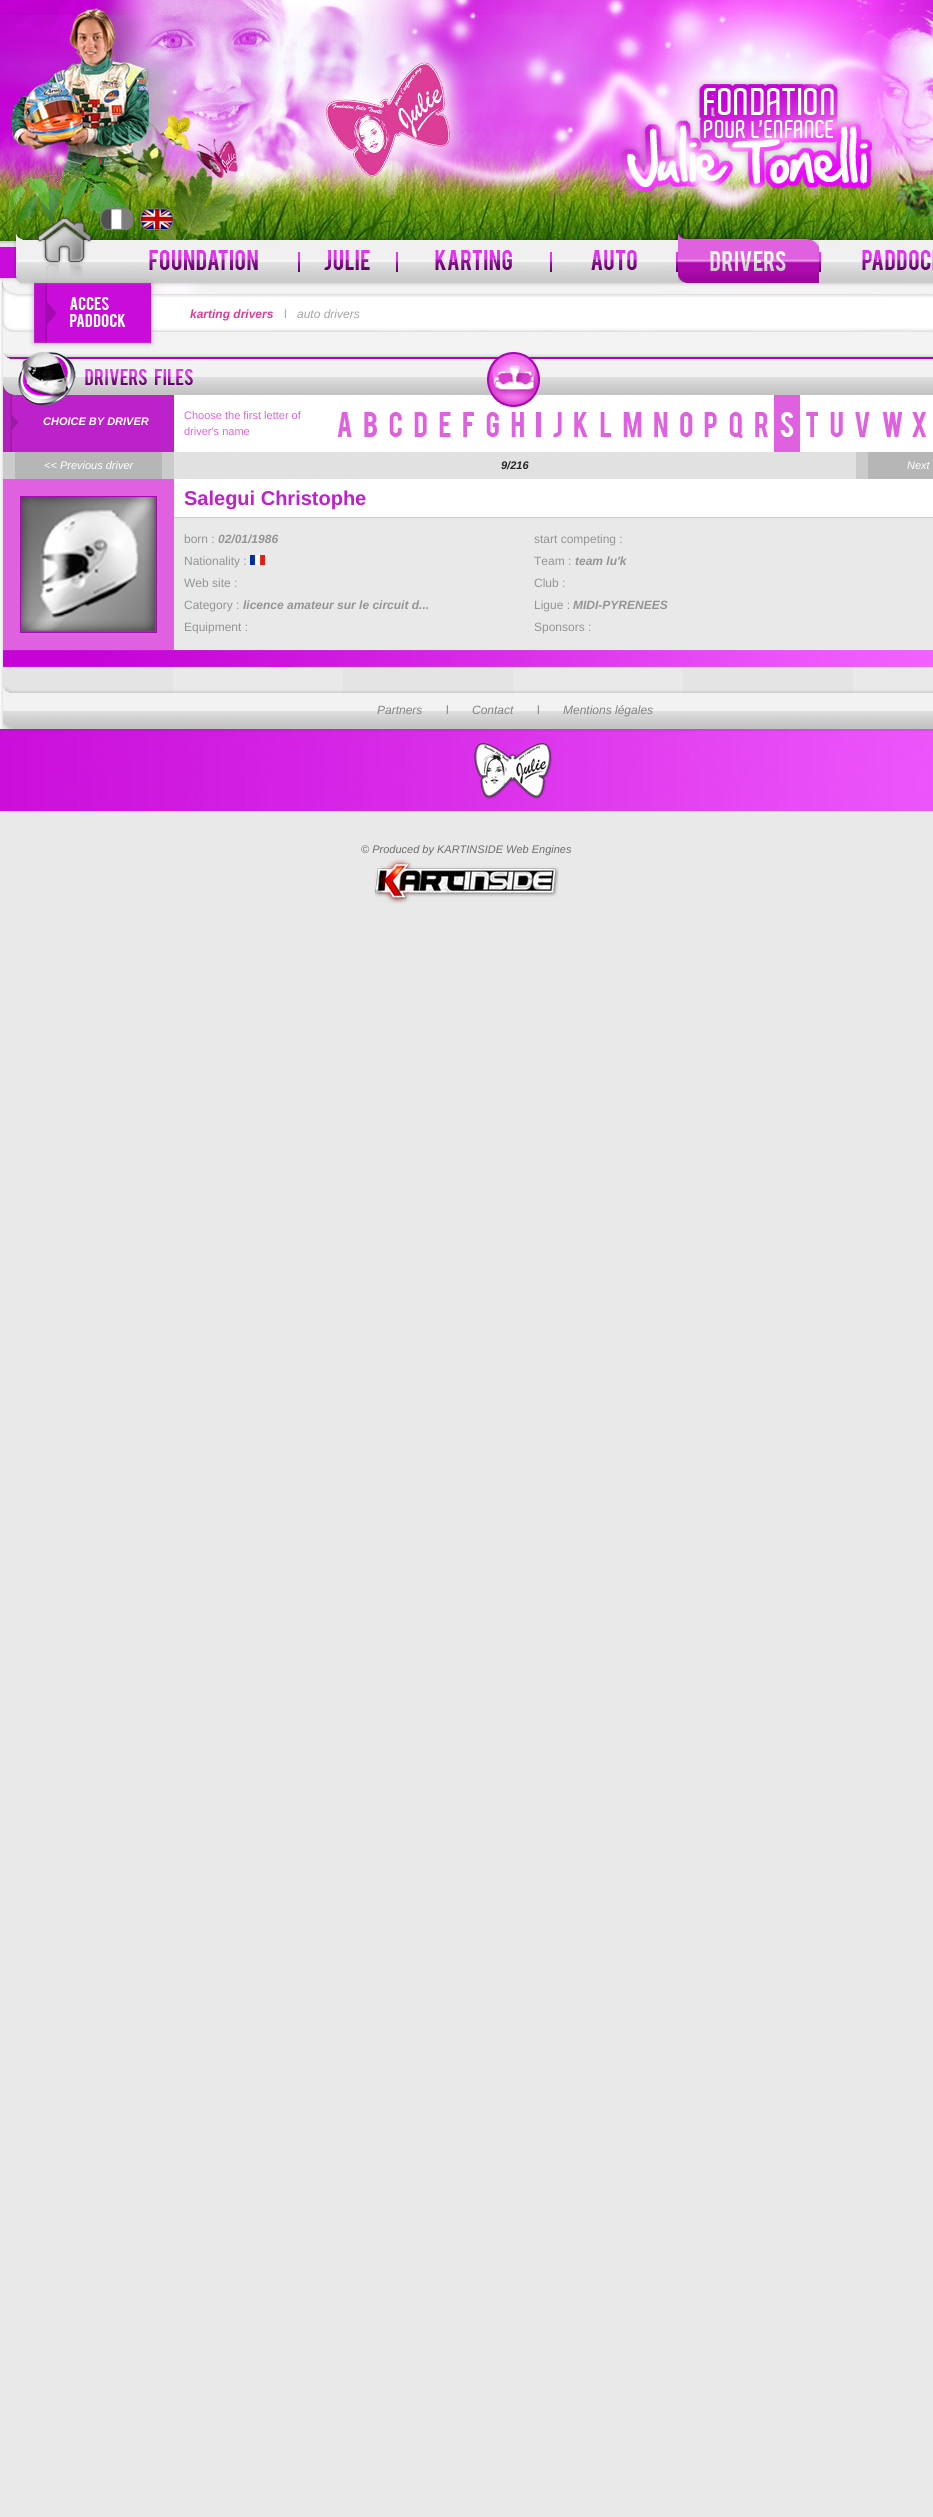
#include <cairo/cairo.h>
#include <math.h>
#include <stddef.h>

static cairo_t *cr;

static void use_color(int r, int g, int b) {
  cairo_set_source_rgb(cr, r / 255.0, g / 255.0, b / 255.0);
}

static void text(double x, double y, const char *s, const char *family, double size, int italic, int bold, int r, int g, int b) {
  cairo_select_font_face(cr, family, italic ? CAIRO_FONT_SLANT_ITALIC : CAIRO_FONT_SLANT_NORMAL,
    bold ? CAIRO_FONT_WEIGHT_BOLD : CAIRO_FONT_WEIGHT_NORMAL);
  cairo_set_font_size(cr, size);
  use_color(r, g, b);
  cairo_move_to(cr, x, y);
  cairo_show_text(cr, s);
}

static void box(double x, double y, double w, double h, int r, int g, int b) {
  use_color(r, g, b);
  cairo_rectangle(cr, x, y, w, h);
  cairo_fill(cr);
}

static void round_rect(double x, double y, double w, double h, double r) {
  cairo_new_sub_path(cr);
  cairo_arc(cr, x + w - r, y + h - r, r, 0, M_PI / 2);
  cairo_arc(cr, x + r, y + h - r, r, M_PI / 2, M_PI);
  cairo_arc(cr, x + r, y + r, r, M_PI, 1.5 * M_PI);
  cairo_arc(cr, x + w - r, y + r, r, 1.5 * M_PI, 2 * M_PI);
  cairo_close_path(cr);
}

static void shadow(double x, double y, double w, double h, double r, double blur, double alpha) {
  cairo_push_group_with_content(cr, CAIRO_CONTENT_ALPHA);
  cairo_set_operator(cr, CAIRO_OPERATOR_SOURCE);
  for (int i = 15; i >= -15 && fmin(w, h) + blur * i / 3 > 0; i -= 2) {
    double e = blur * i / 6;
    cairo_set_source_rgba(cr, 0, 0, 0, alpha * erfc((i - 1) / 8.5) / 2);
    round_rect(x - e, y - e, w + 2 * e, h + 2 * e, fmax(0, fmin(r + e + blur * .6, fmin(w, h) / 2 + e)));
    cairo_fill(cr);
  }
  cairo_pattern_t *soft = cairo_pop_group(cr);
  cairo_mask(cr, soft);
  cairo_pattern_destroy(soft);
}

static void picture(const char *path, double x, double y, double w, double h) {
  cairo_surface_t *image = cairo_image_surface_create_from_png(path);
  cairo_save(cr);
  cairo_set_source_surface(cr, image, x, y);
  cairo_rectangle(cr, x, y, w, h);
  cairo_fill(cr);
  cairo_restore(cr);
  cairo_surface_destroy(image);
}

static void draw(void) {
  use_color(233, 233, 233);
  cairo_paint(cr);
  picture("img_01.png", 0, 0, 933, 332);
  picture("img_02.png", 36, 216, 57, 61);
  picture("img_03.png", 100, 208, 33, 22);
  picture("img_04.png", 140, 208, 34, 22);
  picture("img_05.png", 298, 252, 2, 20);
  picture("img_06.png", 149, 250, 109, 20);
  picture("img_05.png", 396, 252, 2, 20);
  picture("img_07.png", 324, 250, 46, 20);
  picture("img_05.png", 550, 252, 2, 20);
  picture("img_08.png", 435, 250, 77, 20);
  picture("img_05.png", 676, 252, 2, 20);
  picture("img_09.png", 591, 250, 46, 20);
  picture("img_05.png", 819, 252, 2, 20);
  picture("img_10.png", 678, 232, 141, 51);
  picture("img_11.png", 862, 250, 71, 20);
  picture("img_14.png", 0, 332, 933, 397);
  picture("img_15.png", 3, 352, 930, 43);
  picture("img_19.png", 3, 395, 171, 57);
  picture("img_16.png", 18, 352, 58, 53);
  use_color(170, 170, 170);
  shadow(34, 283, 117, 60, 0, 3, 1);
  picture("img_12.png", 34, 283, 117, 60);
  picture("img_13.png", 70, 297, 56, 30);
  picture("img_17.png", 85, 369, 108, 16);
  box(174, 395, 759, 57, 255, 255, 255);
  picture("img_18.png", 487, 352, 53, 55);
  box(174, 518, 759, 132, 233, 233, 233);
  picture("img_20.png", 337, 412, 15, 25);
  picture("img_21.png", 364, 412, 13, 25);
  picture("img_22.png", 389, 412, 13, 25);
  picture("img_23.png", 414, 412, 13, 25);
  picture("img_24.png", 439, 412, 12, 25);
  picture("img_25.png", 463, 412, 11, 25);
  picture("img_26.png", 486, 412, 13, 25);
  picture("img_27.png", 511, 412, 13, 25);
  box(536, 412, 5, 25, 223, 97, 223);
  picture("img_28.png", 553, 412, 9, 25);
  picture("img_29.png", 574, 412, 14, 25);
  picture("img_30.png", 600, 412, 11, 25);
  picture("img_31.png", 623, 412, 19, 25);
  picture("img_32.png", 654, 412, 14, 25);
  picture("img_33.png", 680, 412, 13, 25);
  picture("img_34.png", 704, 412, 13, 25);
  picture("img_35.png", 729, 412, 14, 26);
  picture("img_36.png", 755, 412, 13, 25);
  picture("img_37.png", 774, 395, 26, 57);
  picture("img_38.png", 806, 412, 12, 25);
  picture("img_39.png", 830, 412, 13, 25);
  picture("img_40.png", 855, 412, 15, 25);
  picture("img_41.png", 882, 412, 21, 25);
  picture("img_42.png", 912, 412, 14, 25);
  box(174, 452, 682, 27, 225, 225, 225);
  box(3, 452, 171, 27, 203, 203, 203);
  box(15, 452, 147, 27, 182, 182, 182);
  box(856, 452, 12, 27, 203, 203, 203);
  box(868, 452, 65, 27, 182, 182, 182);
  box(3, 479, 171, 171, 223, 97, 223);
  cairo_rectangle(cr, 20.5, 496.5, 136, 136);
  use_color(162, 13, 175);
  cairo_set_line_width(cr, 1);
  cairo_stroke(cr);
  picture("img_43.png", 21, 497, 135, 135);
  box(174, 479, 759, 38, 255, 255, 255);
  box(174, 517, 759, 1, 204, 204, 204);
  picture("img_44.png", 250, 555, 15, 10);
  box(173, 667, 760, 26, 233, 233, 233);
  picture("img_45.png", 3, 650, 930, 17);
  box(3, 667, 170, 62, 228, 228, 228);
  box(343, 667, 170, 26, 228, 228, 228);
  box(683, 667, 170, 26, 228, 228, 228);
  picture("img_46.png", 3, 686, 930, 43);
  picture("img_47.png", 0, 729, 933, 82);
  picture("img_48.png", 474, 743, 79, 56);
  picture("img_49.png", 374, 859, 185, 45);
  text(190, 318, "karting drivers", "Liberation Sans", 12, 1, 1, 219, 61, 151);
  text(284, 318, "l", "Liberation Sans", 12, 0, 0, 163, 164, 163);
  text(297, 318, "auto drivers", "Liberation Sans", 12, 1, 0, 163, 164, 163);
  text(43, 425, "CHOICE BY DRIVER", "Liberation Sans", 11, 1, 1, 255, 255, 255);
  text(184, 419, "Choose the first letter of", "Liberation Sans", 11, 0, 0, 223, 97, 223);
  text(184, 435, "driver's name", "Liberation Sans", 11, 0, 0, 223, 97, 223);
  text(44, 469, "<< Previous driver", "Liberation Sans", 11, 1, 0, 255, 255, 255);
  text(501, 469, "9/216", "Liberation Sans", 11, 1, 1, 37, 37, 37);
  text(907, 469, "Next", "Liberation Sans", 11, 1, 0, 255, 255, 255);
  text(184, 505, "Salegui Christophe", "Liberation Sans", 20, 0, 1, 189, 33, 202);
  text(184, 543, "born :", "Liberation Sans", 12, 0, 0, 148, 148, 148);
  text(218, 543, "02/01/1986", "Liberation Sans", 12, 1, 1, 148, 148, 148);
  text(184, 565, "Nationality :", "Liberation Sans", 12, 0, 0, 148, 148, 148);
  text(184, 587, "Web site :", "Liberation Sans", 12, 0, 0, 148, 148, 148);
  text(184, 609, "Category :", "Liberation Sans", 12, 0, 0, 148, 148, 148);
  text(243, 609, "licence amateur sur le circuit d...", "Liberation Sans", 12, 1, 1, 148, 148, 148);
  text(184, 631, "Equipment :", "Liberation Sans", 12, 0, 0, 148, 148, 148);
  text(534, 543, "start competing :", "Liberation Sans", 12, 0, 0, 148, 148, 148);
  text(534, 565, "Team :", "Liberation Sans", 12, 0, 0, 148, 148, 148);
  text(575, 565, "team lu'k", "Liberation Sans", 12, 1, 1, 148, 148, 148);
  text(534, 587, "Club :", "Liberation Sans", 12, 0, 0, 148, 148, 148);
  text(534, 609, "Ligue :", "Liberation Sans", 12, 0, 0, 148, 148, 148);
  text(573, 609, "MIDI-PYRENEES", "Liberation Sans", 12, 1, 1, 148, 148, 148);
  text(534, 631, "Sponsors :", "Liberation Sans", 12, 0, 0, 148, 148, 148);
  text(377, 714, "Partners", "Liberation Sans", 12, 1, 0, 131, 130, 130);
  text(446, 714, "l", "Liberation Sans", 12, 0, 0, 131, 130, 130);
  text(472, 714, "Contact", "Liberation Sans", 12, 1, 0, 131, 130, 130);
  text(537, 714, "l", "Liberation Sans", 12, 0, 0, 131, 130, 130);
  text(563, 714, "Mentions légales", "Liberation Sans", 12, 1, 0, 131, 130, 130);
  text(361, 853, "© Produced by KARTINSIDE Web Engines", "Liberation Sans", 11, 1, 0, 108, 108, 108);
}

int main(void) {
  cairo_surface_t *surface = cairo_image_surface_create(CAIRO_FORMAT_RGB24, 933, 2517);
  cr = cairo_create(surface);
  cairo_font_options_t *options = cairo_font_options_create();
  cairo_font_options_set_hint_metrics(options, CAIRO_HINT_METRICS_OFF);
  cairo_font_options_set_hint_style(options, CAIRO_HINT_STYLE_NONE);
  cairo_set_font_options(cr, options);
  cairo_set_miter_limit(cr, 4);
  draw();
  cairo_surface_write_to_png(surface, "out.png");
  cairo_font_options_destroy(options);
  cairo_destroy(cr);
  cairo_surface_destroy(surface);
  return 0;
}
